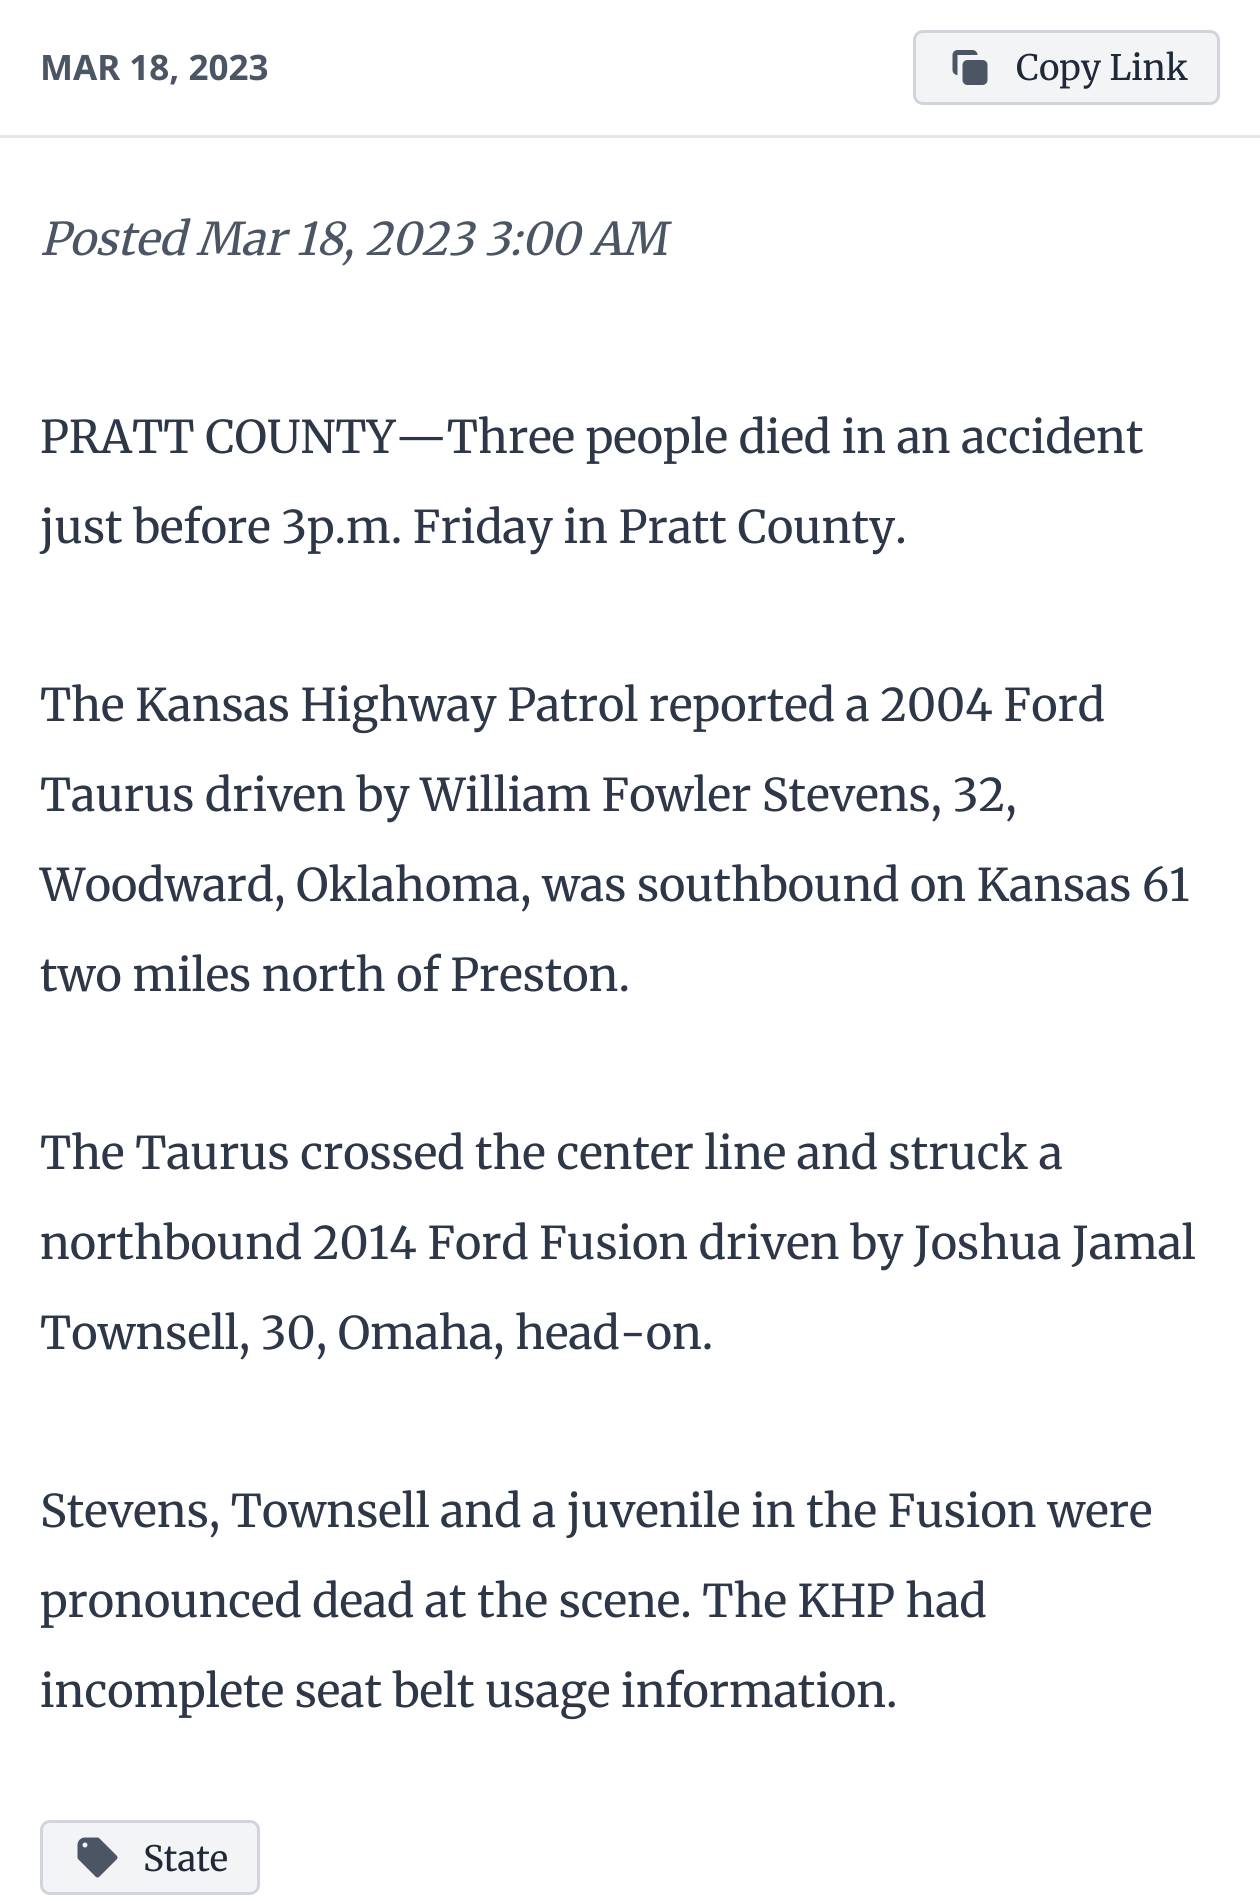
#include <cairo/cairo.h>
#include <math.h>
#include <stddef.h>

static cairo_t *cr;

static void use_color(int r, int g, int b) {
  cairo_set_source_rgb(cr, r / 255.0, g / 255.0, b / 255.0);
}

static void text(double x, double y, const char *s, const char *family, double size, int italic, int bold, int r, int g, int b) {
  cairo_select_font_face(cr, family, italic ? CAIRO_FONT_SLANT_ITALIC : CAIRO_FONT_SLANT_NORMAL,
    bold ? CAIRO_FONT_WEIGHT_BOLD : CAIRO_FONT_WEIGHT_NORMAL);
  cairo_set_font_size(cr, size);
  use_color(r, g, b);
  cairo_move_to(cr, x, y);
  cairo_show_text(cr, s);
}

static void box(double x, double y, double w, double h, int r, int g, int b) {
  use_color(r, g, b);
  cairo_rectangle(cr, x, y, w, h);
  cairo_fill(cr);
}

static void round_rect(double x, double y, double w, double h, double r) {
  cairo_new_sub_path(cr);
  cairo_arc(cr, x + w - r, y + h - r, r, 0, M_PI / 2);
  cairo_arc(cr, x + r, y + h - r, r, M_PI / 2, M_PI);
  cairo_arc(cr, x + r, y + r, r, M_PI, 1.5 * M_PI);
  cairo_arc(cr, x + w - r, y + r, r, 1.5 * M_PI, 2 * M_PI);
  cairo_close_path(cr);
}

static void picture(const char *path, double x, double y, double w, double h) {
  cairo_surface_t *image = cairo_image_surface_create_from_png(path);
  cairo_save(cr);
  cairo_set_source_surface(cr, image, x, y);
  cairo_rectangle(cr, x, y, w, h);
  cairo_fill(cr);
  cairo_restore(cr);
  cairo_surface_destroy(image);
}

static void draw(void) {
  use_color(255, 255, 255);
  cairo_paint(cr);
  box(0, 135, 1260, 3, 229, 231, 235);
  use_color(243, 244, 246);
  round_rect(914.5, 31.5, 304, 72, 8.5);
  cairo_fill_preserve(cr);
  use_color(209, 213, 219);
  cairo_set_line_width(cr, 3);
  cairo_stroke(cr);
  picture("img_01.png", 952, 50, 36, 35);
  use_color(243, 244, 246);
  round_rect(41.5, 1821.5, 217, 72, 8.5);
  cairo_fill_preserve(cr);
  use_color(209, 213, 219);
  cairo_stroke(cr);
  picture("img_02.png", 77, 1837, 41, 41);
  text(40, 80, "MAR 18, 2023", "Noto Sans", 35, 0, 1, 75, 85, 99);
  text(1016, 80, "Copy Link", "Merriweather", 35, 0, 0, 31, 41, 55);
  text(40, 255, "Posted Mar 18, 2023 3:00 AM", "Merriweather", 45, 1, 0, 75, 85, 99);
  text(40, 453, "PRATT COUNTY—Three people died in an accident", "Merriweather", 45, 0, 0, 45, 55, 72);
  text(40, 543, "just before 3p.m. Friday in Pratt County.", "Merriweather", 45, 0, 0, 45, 55, 72);
  text(40, 721, "The Kansas Highway Patrol reported a 2004 Ford", "Merriweather", 45, 0, 0, 45, 55, 72);
  text(40, 811, "Taurus driven by William Fowler Stevens, 32,", "Merriweather", 45, 0, 0, 45, 55, 72);
  text(40, 901, "Woodward, Oklahoma, was southbound on Kansas 61", "Merriweather", 45, 0, 0, 45, 55, 72);
  text(40, 991, "two miles north of Preston.", "Merriweather", 45, 0, 0, 45, 55, 72);
  text(40, 1169, "The Taurus crossed the center line and struck a", "Merriweather", 45, 0, 0, 45, 55, 72);
  text(40, 1259, "northbound 2014 Ford Fusion driven by Joshua Jamal", "Merriweather", 45, 0, 0, 45, 55, 72);
  text(40, 1349, "Townsell, 30, Omaha, head-on.", "Merriweather", 45, 0, 0, 45, 55, 72);
  text(40, 1527, "Stevens, Townsell and a juvenile in the Fusion were", "Merriweather", 45, 0, 0, 45, 55, 72);
  text(40, 1617, "pronounced dead at the scene. The KHP had", "Merriweather", 45, 0, 0, 45, 55, 72);
  text(40, 1707, "incomplete seat belt usage information.", "Merriweather", 45, 0, 0, 45, 55, 72);
  text(143, 1871, "State", "Merriweather", 35, 0, 0, 31, 41, 55);
}

int main(void) {
  cairo_surface_t *surface = cairo_image_surface_create(CAIRO_FORMAT_RGB24, 1260, 1901);
  cr = cairo_create(surface);
  cairo_font_options_t *options = cairo_font_options_create();
  cairo_font_options_set_hint_metrics(options, CAIRO_HINT_METRICS_OFF);
  cairo_font_options_set_hint_style(options, CAIRO_HINT_STYLE_NONE);
  cairo_set_font_options(cr, options);
  cairo_set_miter_limit(cr, 4);
  draw();
  cairo_surface_write_to_png(surface, "out.png");
  cairo_font_options_destroy(options);
  cairo_destroy(cr);
  cairo_surface_destroy(surface);
  return 0;
}
